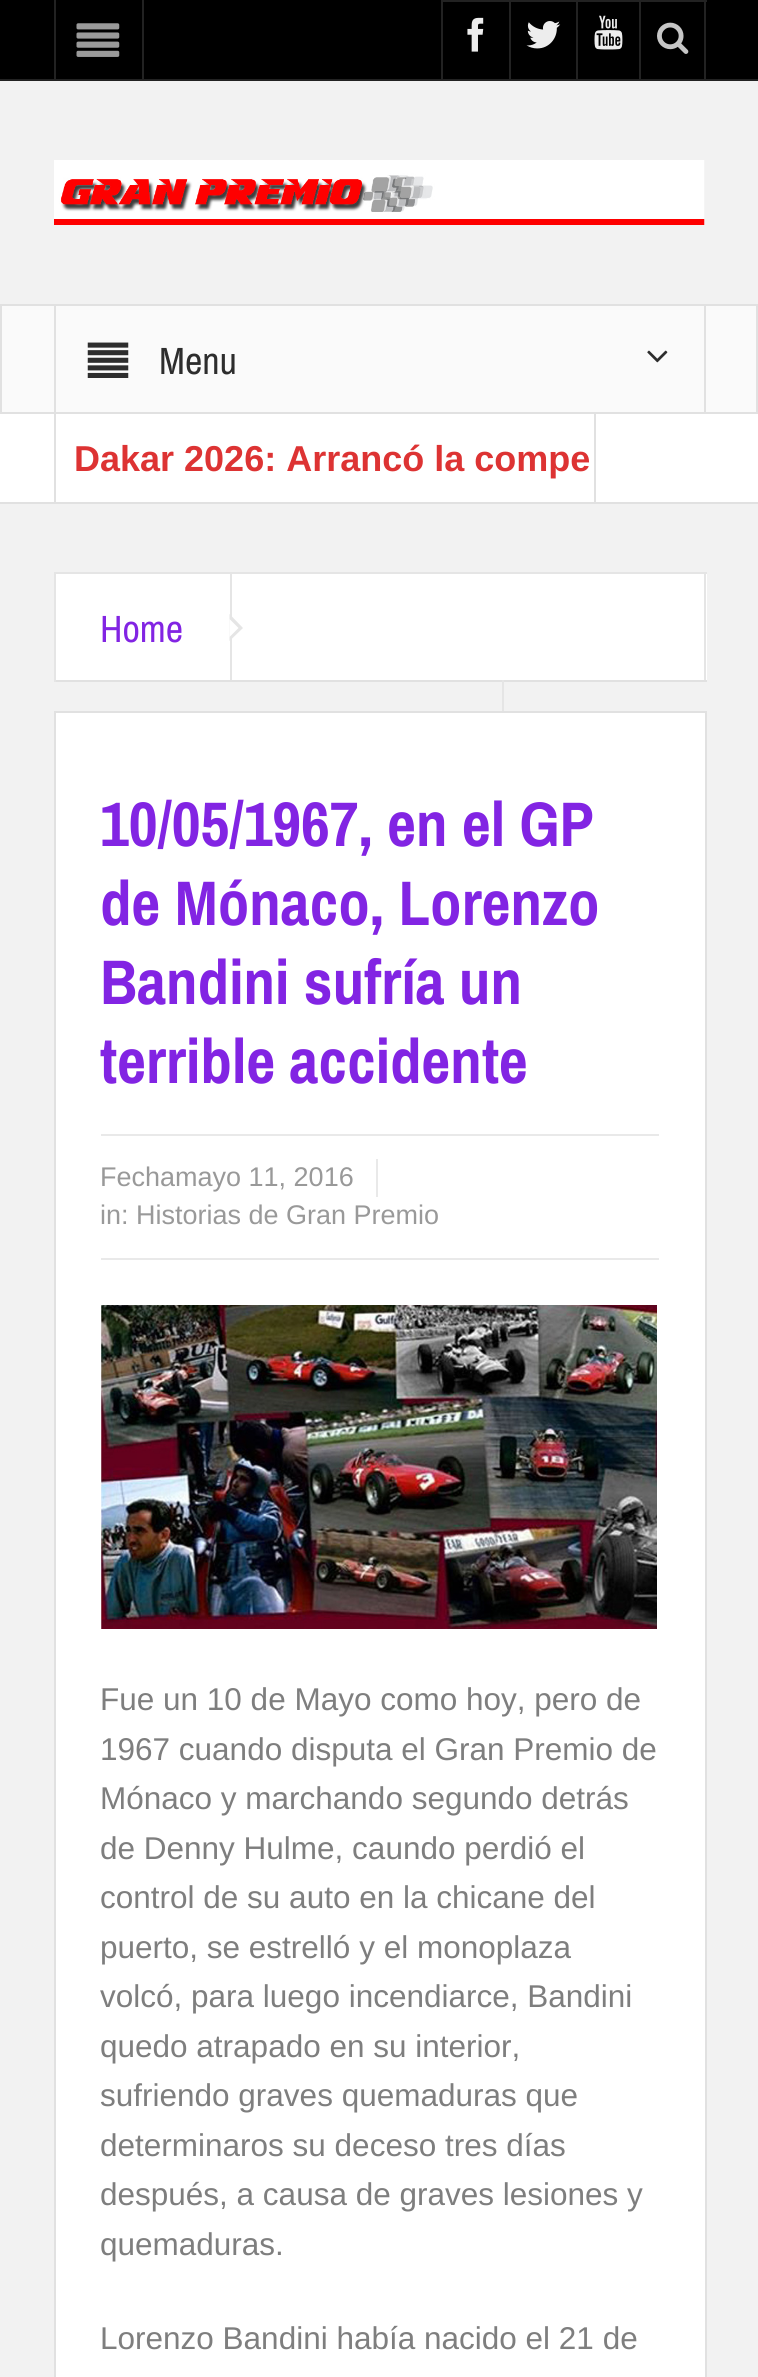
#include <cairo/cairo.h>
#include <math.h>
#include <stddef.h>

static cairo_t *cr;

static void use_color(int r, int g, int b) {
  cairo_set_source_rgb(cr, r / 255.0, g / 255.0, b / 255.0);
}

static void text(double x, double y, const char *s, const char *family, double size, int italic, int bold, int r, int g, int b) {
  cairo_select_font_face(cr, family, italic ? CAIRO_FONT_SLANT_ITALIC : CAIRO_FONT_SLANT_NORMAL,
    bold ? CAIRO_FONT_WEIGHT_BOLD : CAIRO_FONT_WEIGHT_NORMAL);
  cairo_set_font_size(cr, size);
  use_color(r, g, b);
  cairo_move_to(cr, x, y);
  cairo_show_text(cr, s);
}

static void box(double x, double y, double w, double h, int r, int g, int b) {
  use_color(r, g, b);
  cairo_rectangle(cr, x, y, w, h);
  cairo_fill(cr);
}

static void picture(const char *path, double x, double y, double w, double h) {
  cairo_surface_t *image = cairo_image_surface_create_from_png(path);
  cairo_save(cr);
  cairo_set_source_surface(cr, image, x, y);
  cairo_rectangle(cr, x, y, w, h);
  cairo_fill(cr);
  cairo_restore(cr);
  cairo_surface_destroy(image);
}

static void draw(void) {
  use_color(242, 242, 242);
  cairo_paint(cr);
  box(0, 0, 758, 79, 0, 0, 0);
  box(0, 79, 758, 2, 34, 34, 34);
  box(142, 0, 2, 79, 34, 34, 34);
  box(54, 0, 2, 79, 34, 34, 34);
  picture("img_01.png", 76, 23, 44, 34);
  box(441, 0, 266, 2, 34, 34, 34);
  box(441, 0, 2, 79, 34, 34, 34);
  picture("img_02.png", 467, 17, 17, 35);
  box(509, 0, 2, 79, 34, 34, 34);
  picture("img_03.png", 526, 21, 35, 28);
  box(576, 0, 2, 79, 34, 34, 34);
  picture("img_04.png", 594, 15, 29, 35);
  box(704, 0, 2, 79, 34, 34, 34);
  box(639, 0, 2, 79, 34, 34, 34);
  picture("img_05.png", 657, 22, 32, 32);
  box(0, 304, 758, 2, 225, 225, 225);
  picture("img_06.png", 54, 160, 651, 65);
  box(2, 306, 754, 106, 250, 250, 250);
  box(756, 306, 2, 108, 225, 225, 225);
  box(0, 412, 758, 2, 225, 225, 225);
  box(0, 306, 2, 108, 225, 225, 225);
  box(704, 306, 2, 106, 225, 225, 225);
  box(54, 306, 2, 106, 225, 225, 225);
  picture("img_07.png", 87, 342, 42, 36);
  picture("img_08.png", 647, 350, 21, 13);
  box(0, 414, 758, 88, 255, 255, 255);
  box(0, 502, 758, 2, 225, 225, 225);
  box(594, 414, 2, 90, 225, 225, 225);
  box(54, 414, 2, 90, 225, 225, 225);
  box(56, 574, 651, 106, 255, 255, 255);
  box(54, 572, 653, 2, 229, 229, 229);
  box(704, 572, 2, 110, 229, 229, 229);
  box(54, 680, 653, 2, 225, 225, 225);
  box(54, 572, 2, 110, 229, 229, 229);
  box(230, 574, 2, 106, 229, 229, 229);
  cairo_new_path(cr);
  cairo_move_to(cr, 229.5, 641);
  cairo_line_to(cr, 229.5, 614);
  cairo_line_to(cr, 243, 628);
  cairo_close_path(cr);
  cairo_fill(cr);
  use_color(255, 255, 255);
  cairo_new_path(cr);
  cairo_move_to(cr, 229.5, 637);
  cairo_line_to(cr, 229.5, 619);
  cairo_line_to(cr, 238.5, 628);
  cairo_close_path(cr);
  cairo_fill(cr);
  box(502, 680, 2, 31, 229, 229, 229);
  use_color(255, 255, 255);
  cairo_rectangle(cr, 55, 712, 651, 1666);
  cairo_fill_preserve(cr);
  use_color(225, 225, 225);
  cairo_stroke(cr);
  box(101, 1134, 558, 2, 233, 233, 233);
  box(101, 1258, 558, 2, 233, 233, 233);
  box(376, 1159, 2, 38, 233, 233, 233);
  picture("img_09.png", 101, 1305, 556, 324);
  text(159, 374, "Menu", "Archivo Narrow", 38, 0, 0, 45, 45, 45);
  text(74, 471, "Dakar 2026: Arrancó la compe", "Liberation Sans", 36, 0, 1, 221, 51, 51);
  text(100, 642, "Home", "Archivo Narrow", 38, 0, 0, 130, 36, 227);
  text(100, 846, "10/05/1967, en el GP", "Archivo Narrow", 63, 0, 1, 130, 36, 227);
  text(100, 925, "de Mónaco, Lorenzo", "Archivo Narrow", 63, 0, 1, 130, 36, 227);
  text(100, 1004, "Bandini sufría un", "Archivo Narrow", 63, 0, 1, 130, 36, 227);
  text(100, 1083, "terrible accidente", "Archivo Narrow", 63, 0, 1, 130, 36, 227);
  text(100, 1186, "Fechamayo 11, 2016", "Liberation Sans", 27, 0, 0, 153, 153, 153);
  text(100, 1224, "in: Historias de Gran Premio", "Liberation Sans", 27, 0, 0, 153, 153, 153);
  text(100, 1710, "Fue un 10 de Mayo como hoy, pero de", "Liberation Sans", 31.5, 0, 0, 126, 126, 126);
  text(100, 1760, "1967 cuando disputa el Gran Premio de", "Liberation Sans", 31.5, 0, 0, 126, 126, 126);
  text(100, 1809, "Mónaco y marchando segundo detrás", "Liberation Sans", 31.5, 0, 0, 126, 126, 126);
  text(100, 1859, "de Denny Hulme, caundo perdió el", "Liberation Sans", 31.5, 0, 0, 126, 126, 126);
  text(100, 1908, "control de su auto en la chicane del", "Liberation Sans", 31.5, 0, 0, 126, 126, 126);
  text(100, 1958, "puerto, se estrelló y el monoplaza", "Liberation Sans", 31.5, 0, 0, 126, 126, 126);
  text(100, 2007, "volcó, para luego incendiarce, Bandini", "Liberation Sans", 31.5, 0, 0, 126, 126, 126);
  text(100, 2057, "quedo atrapado en su interior,", "Liberation Sans", 31.5, 0, 0, 126, 126, 126);
  text(100, 2106, "sufriendo graves quemaduras que", "Liberation Sans", 31.5, 0, 0, 126, 126, 126);
  text(100, 2156, "determinaros su deceso tres días", "Liberation Sans", 31.5, 0, 0, 126, 126, 126);
  text(100, 2205, "después, a causa de graves lesiones y", "Liberation Sans", 31.5, 0, 0, 126, 126, 126);
  text(100, 2255, "quemaduras.", "Liberation Sans", 31.5, 0, 0, 126, 126, 126);
  text(100, 2349, "Lorenzo Bandini había nacido el 21 de", "Liberation Sans", 31.5, 0, 0, 126, 126, 126);
}

int main(void) {
  cairo_surface_t *surface = cairo_image_surface_create(CAIRO_FORMAT_RGB24, 758, 2377);
  cr = cairo_create(surface);
  cairo_font_options_t *options = cairo_font_options_create();
  cairo_font_options_set_hint_metrics(options, CAIRO_HINT_METRICS_OFF);
  cairo_font_options_set_hint_style(options, CAIRO_HINT_STYLE_NONE);
  cairo_set_font_options(cr, options);
  cairo_set_miter_limit(cr, 4);
  draw();
  cairo_surface_write_to_png(surface, "out.png");
  cairo_font_options_destroy(options);
  cairo_destroy(cr);
  cairo_surface_destroy(surface);
  return 0;
}
